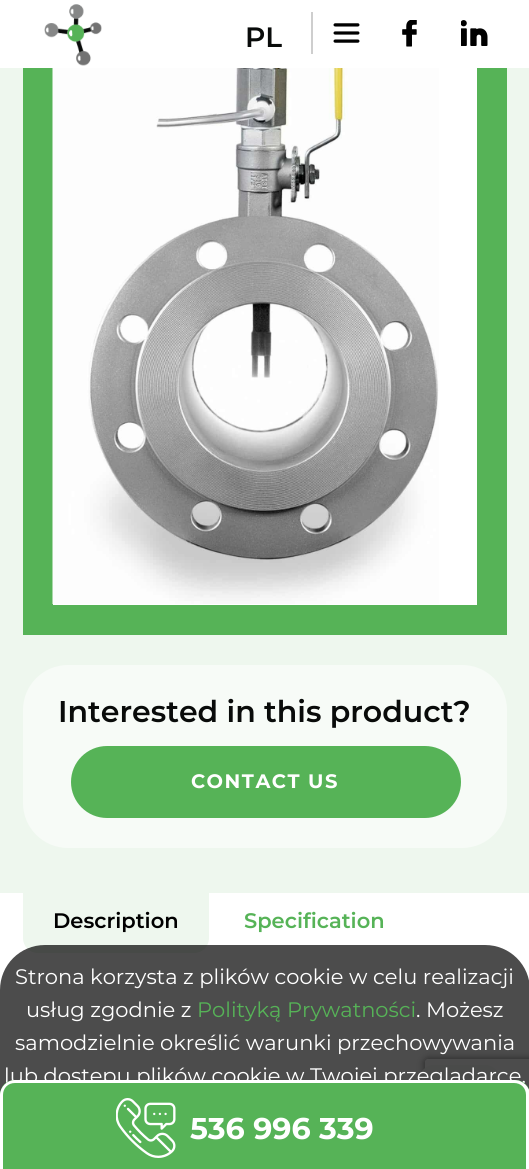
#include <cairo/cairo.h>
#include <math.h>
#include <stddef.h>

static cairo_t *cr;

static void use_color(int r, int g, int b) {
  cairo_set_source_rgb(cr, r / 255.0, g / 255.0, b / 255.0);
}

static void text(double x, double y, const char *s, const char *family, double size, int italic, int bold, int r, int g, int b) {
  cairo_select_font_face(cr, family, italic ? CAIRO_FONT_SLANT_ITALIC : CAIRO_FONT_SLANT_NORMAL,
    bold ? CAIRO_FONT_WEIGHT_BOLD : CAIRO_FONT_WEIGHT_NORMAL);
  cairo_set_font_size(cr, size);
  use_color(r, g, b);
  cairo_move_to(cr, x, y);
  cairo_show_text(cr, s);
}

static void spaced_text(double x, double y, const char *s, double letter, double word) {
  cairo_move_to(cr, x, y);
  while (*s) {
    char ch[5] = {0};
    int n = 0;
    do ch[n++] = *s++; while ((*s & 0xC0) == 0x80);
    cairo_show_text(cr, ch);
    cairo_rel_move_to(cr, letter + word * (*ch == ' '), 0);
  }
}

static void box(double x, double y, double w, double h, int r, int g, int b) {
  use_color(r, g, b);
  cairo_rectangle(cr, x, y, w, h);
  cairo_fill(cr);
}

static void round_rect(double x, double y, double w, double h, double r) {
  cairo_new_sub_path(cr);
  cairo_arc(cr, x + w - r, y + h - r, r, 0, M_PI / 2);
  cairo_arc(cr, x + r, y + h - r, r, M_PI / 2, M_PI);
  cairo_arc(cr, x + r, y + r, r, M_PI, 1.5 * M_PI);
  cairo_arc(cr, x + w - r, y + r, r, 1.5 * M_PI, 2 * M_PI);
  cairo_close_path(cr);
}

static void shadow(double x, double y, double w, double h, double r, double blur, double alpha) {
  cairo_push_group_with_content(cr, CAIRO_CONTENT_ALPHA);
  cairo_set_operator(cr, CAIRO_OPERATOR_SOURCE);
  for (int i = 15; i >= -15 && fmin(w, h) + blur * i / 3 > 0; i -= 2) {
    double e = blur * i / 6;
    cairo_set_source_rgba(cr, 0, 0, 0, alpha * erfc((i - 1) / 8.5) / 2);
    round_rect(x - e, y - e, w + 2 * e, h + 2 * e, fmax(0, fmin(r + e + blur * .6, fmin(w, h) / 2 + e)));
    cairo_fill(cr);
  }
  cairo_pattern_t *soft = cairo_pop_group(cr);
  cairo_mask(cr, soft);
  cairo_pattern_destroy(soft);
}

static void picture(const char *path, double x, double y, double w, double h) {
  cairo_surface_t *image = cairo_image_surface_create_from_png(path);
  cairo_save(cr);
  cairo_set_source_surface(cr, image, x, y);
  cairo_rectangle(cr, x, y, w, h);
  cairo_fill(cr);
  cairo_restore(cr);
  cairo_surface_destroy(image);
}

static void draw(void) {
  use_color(255, 255, 255);
  cairo_paint(cr);
  box(0, 68, 529, 825, 238, 247, 238);
  box(53, 68, 424, 537, 255, 255, 255);
  cairo_rectangle(cr, 38, -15, 454, 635);
  use_color(86, 179, 87);
  cairo_set_line_width(cr, 30);
  cairo_stroke(cr);
  box(23, 0, 484, 68, 255, 255, 255);
  picture("img_01.png", 44, 4, 58, 62);
  box(311, 12, 2, 42, 206, 206, 206);
  picture("img_02.png", 333, 23, 27, 20);
  picture("img_03.png", 402, 20, 15, 27);
  picture("img_04.png", 461, 20, 27, 26);
  picture("img_05.png", 52, 68, 387, 536);
  use_color(247, 251, 247);
  round_rect(23, 665, 484, 183, 45);
  cairo_fill(cr);
  use_color(86, 179, 87);
  round_rect(71, 746, 390, 72, 36);
  cairo_fill(cr);
  use_color(238, 247, 238);
  cairo_new_path(cr);
  cairo_move_to(cr, 23, 893);
  cairo_line_to(cr, 209, 893);
  cairo_line_to(cr, 209, 938);
  cairo_curve_to(cr, 209, 946.5, 202.5, 953, 194, 953);
  cairo_line_to(cr, 38, 953);
  cairo_curve_to(cr, 29.5, 953, 23, 946.5, 23, 938);
  cairo_close_path(cr);
  cairo_fill(cr);
  cairo_save(cr);
  cairo_set_fill_rule(cr, CAIRO_FILL_RULE_EVEN_ODD);
  cairo_new_path(cr);
  cairo_move_to(cr, 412, 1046);
  cairo_line_to(cr, 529, 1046);
  cairo_line_to(cr, 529, 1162);
  cairo_line_to(cr, 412, 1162);
  cairo_close_path(cr);
  cairo_move_to(cr, 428, 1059);
  cairo_line_to(cr, 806, 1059);
  cairo_curve_to(cr, 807.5, 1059, 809, 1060.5, 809, 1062);
  cairo_line_to(cr, 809, 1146);
  cairo_curve_to(cr, 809, 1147.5, 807.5, 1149, 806, 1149);
  cairo_line_to(cr, 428, 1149);
  cairo_curve_to(cr, 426.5, 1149, 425, 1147.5, 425, 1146);
  cairo_line_to(cr, 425, 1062);
  cairo_curve_to(cr, 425, 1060.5, 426.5, 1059, 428, 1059);
  cairo_close_path(cr);
  cairo_clip(cr);
  use_color(128, 128, 128);
  shadow(425, 1059, 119, 90, 3, 4, 1);
  cairo_restore(cr);
  use_color(247, 251, 247);
  round_rect(419, 1065, 81, 75, 15);
  cairo_fill(cr);
  cairo_set_source_rgba(cr, 0, 0, 0, 0.7);
  cairo_new_path(cr);
  cairo_move_to(cr, 45, 945);
  cairo_line_to(cr, 485, 945);
  cairo_curve_to(cr, 510, 945, 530, 965, 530, 990);
  cairo_line_to(cr, 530, 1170);
  cairo_line_to(cr, 0, 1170);
  cairo_line_to(cr, 0, 990);
  cairo_curve_to(cr, 0, 965, 20, 945, 45, 945);
  cairo_close_path(cr);
  cairo_fill(cr);
  text(245, 47, "PL", "Montserrat SemiBold", 28, 0, 0, 9, 11, 10);
  text(58, 722, "Interested in this product?", "Montserrat SemiBold", 30, 0, 0, 9, 11, 10);
  cairo_select_font_face(cr, "Montserrat", CAIRO_FONT_SLANT_NORMAL, CAIRO_FONT_WEIGHT_BOLD);
  cairo_set_font_size(cr, 19.5);
  use_color(255, 255, 255);
  spaced_text(191, 788, "CONTACT US", 1.5, 0);
  text(53, 928, "Description", "Montserrat SemiBold", 21, 0, 0, 0, 0, 0);
  text(244, 928, "Specification", "Montserrat SemiBold", 21, 0, 0, 86, 179, 87);
  text(15, 984, "Strona korzysta z plików cookie w celu realizacji", "Montserrat", 21, 0, 0, 255, 255, 255);
  text(26, 1017, "usług zgodnie z", "Montserrat", 21, 0, 0, 255, 255, 255);
  text(197, 1017, "Polityką Prywatności", "Montserrat", 21, 0, 0, 86, 179, 87);
  text(416, 1017, ". Możesz", "Montserrat", 21, 0, 0, 255, 255, 255);
  text(15, 1050, "samodzielnie określić warunki przechowywania", "Montserrat", 21, 0, 0, 255, 255, 255);
  text(4, 1083, "lub dostępu plików cookie w Twojej przeglądarce.", "Montserrat", 21, 0, 0, 255, 255, 255);
  use_color(86, 179, 87);
  cairo_new_path(cr);
  cairo_move_to(cr, 15, 1080);
  cairo_line_to(cr, 515, 1080);
  cairo_curve_to(cr, 523.5, 1080, 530, 1086.5, 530, 1095);
  cairo_line_to(cr, 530, 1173);
  cairo_line_to(cr, 0, 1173);
  cairo_line_to(cr, 0, 1095);
  cairo_curve_to(cr, 0, 1086.5, 6.5, 1080, 15, 1080);
  cairo_close_path(cr);
  cairo_fill(cr);
  use_color(255, 255, 255);
  cairo_set_fill_rule(cr, CAIRO_FILL_RULE_EVEN_ODD);
  cairo_new_path(cr);
  cairo_move_to(cr, 15, 1080);
  cairo_line_to(cr, 514, 1080);
  cairo_curve_to(cr, 523, 1080, 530, 1087, 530, 1095);
  cairo_line_to(cr, 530, 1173);
  cairo_line_to(cr, 0, 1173);
  cairo_line_to(cr, 0, 1095);
  cairo_curve_to(cr, 0, 1087, 7, 1080, 15, 1080);
  cairo_close_path(cr);
  cairo_move_to(cr, 15, 1083);
  cairo_line_to(cr, 514, 1083);
  cairo_curve_to(cr, 521, 1083, 526, 1088, 526, 1095);
  cairo_line_to(cr, 526, 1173);
  cairo_line_to(cr, 3, 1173);
  cairo_line_to(cr, 3, 1095);
  cairo_curve_to(cr, 3, 1088, 8, 1083, 15, 1083);
  cairo_close_path(cr);
  cairo_fill(cr);
  picture("img_06.png", 116, 1098, 60, 60);
  text(190, 1139, "536 996 339", "Montserrat", 30, 0, 1, 255, 255, 255);
}

int main(void) {
  cairo_surface_t *surface = cairo_image_surface_create(CAIRO_FORMAT_RGB24, 529, 1169);
  cr = cairo_create(surface);
  cairo_font_options_t *options = cairo_font_options_create();
  cairo_font_options_set_hint_metrics(options, CAIRO_HINT_METRICS_OFF);
  cairo_font_options_set_hint_style(options, CAIRO_HINT_STYLE_NONE);
  cairo_set_font_options(cr, options);
  cairo_set_miter_limit(cr, 4);
  draw();
  cairo_surface_write_to_png(surface, "out.png");
  cairo_font_options_destroy(options);
  cairo_destroy(cr);
  cairo_surface_destroy(surface);
  return 0;
}
